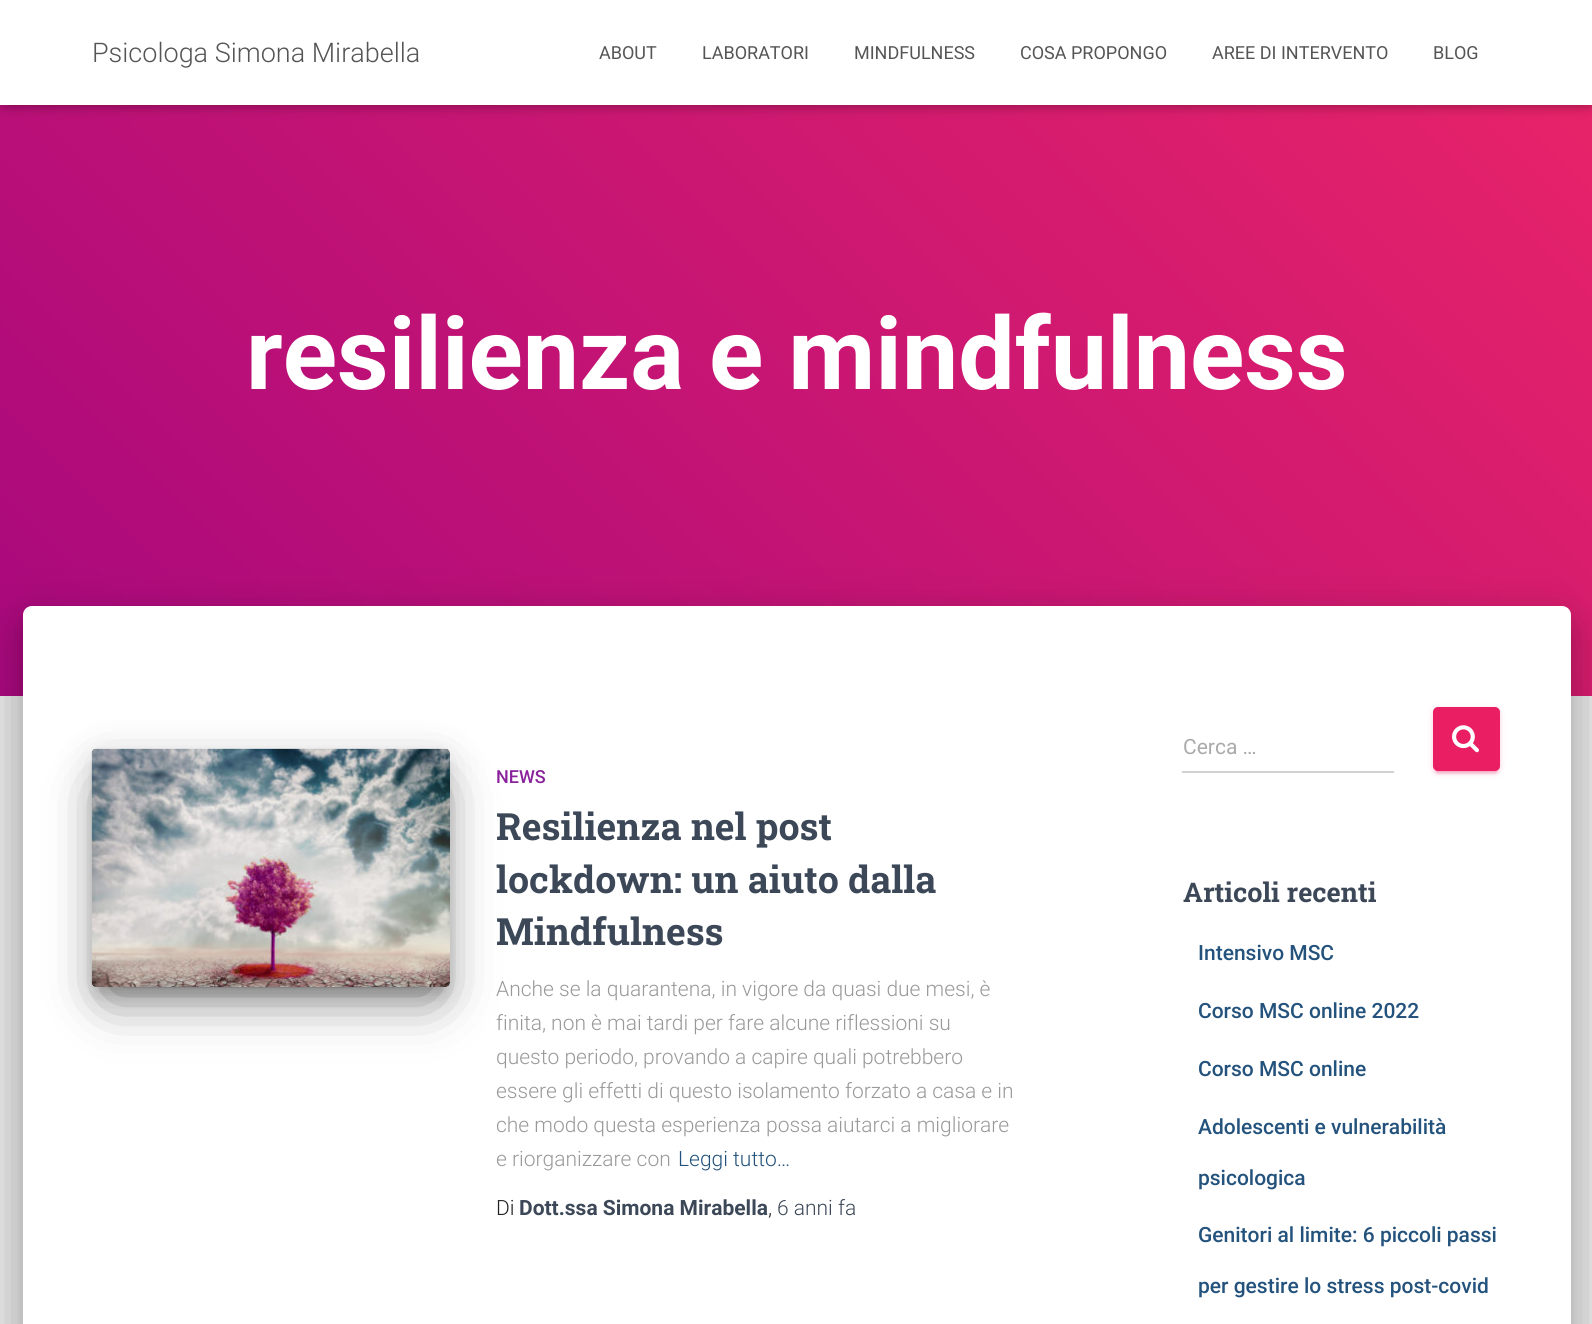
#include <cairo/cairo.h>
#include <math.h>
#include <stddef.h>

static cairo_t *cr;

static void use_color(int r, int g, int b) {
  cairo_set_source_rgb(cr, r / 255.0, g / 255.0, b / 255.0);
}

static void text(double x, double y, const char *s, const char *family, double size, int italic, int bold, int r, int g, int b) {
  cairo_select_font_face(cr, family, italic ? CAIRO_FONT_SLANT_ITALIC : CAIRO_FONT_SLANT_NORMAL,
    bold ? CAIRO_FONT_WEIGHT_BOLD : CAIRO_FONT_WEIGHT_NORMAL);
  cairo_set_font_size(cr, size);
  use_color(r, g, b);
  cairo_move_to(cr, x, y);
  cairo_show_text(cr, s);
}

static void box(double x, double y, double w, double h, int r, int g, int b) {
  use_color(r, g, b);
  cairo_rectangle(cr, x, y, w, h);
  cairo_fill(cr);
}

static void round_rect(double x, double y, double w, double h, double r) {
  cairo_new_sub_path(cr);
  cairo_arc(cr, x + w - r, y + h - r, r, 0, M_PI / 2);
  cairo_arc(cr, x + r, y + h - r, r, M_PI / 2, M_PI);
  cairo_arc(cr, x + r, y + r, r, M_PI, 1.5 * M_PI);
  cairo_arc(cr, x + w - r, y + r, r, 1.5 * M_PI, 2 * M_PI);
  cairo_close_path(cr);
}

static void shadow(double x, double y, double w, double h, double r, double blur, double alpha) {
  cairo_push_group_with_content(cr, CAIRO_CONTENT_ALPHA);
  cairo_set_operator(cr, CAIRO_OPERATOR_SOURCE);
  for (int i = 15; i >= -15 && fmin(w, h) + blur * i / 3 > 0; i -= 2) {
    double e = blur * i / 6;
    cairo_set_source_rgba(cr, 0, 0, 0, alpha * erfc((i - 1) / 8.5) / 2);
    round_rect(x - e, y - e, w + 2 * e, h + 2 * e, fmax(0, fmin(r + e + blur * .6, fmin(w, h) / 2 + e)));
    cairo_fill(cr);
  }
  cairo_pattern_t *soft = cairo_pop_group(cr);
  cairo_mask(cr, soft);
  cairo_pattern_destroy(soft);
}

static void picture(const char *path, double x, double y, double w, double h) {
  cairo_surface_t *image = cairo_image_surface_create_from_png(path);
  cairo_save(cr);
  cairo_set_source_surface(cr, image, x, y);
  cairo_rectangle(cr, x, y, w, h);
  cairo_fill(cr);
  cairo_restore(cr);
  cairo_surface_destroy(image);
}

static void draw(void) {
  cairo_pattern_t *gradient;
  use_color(229, 229, 229);
  cairo_paint(cr);
  gradient = cairo_pattern_create_linear(224, 920, 1369, -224);
  cairo_pattern_add_color_stop_rgba(gradient, 0, 0.659, 0.031, 0.49, 1);
  cairo_pattern_add_color_stop_rgba(gradient, 1, 0.918, 0.141, 0.408, 1);
  cairo_set_source(cr, gradient);
  cairo_pattern_destroy(gradient);
  cairo_rectangle(cr, 0, 105, 1592, 591);
  cairo_fill(cr);
  use_color(0, 0, 0);
  shadow(3, 9, 1587, 99, 0, 4, 0.1);
  shadow(0, 2, 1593, 105, 0, 7.5, 0.12);
  shadow(9, 11, 1575, 87, 0, 7.5, 0.42);
  box(0, 0, 1592, 105, 255, 255, 255);
  use_color(0, 0, 0);
  shadow(30, 626, 1533, 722, 1.5, 7.5, 0.2);
  shadow(15, 608, 1563, 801, 17, 22.5, 0.12);
  shadow(20, 627, 1554, 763, 12, 18, 0.14);
  use_color(255, 255, 255);
  cairo_new_path(cr);
  cairo_move_to(cr, 32, 606);
  cairo_line_to(cr, 1562, 606);
  cairo_curve_to(cr, 1567, 606, 1571, 610, 1571, 615);
  cairo_line_to(cr, 1571, 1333);
  cairo_line_to(cr, 23, 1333);
  cairo_line_to(cr, 23, 615);
  cairo_curve_to(cr, 23, 610, 27, 606, 32, 606);
  cairo_close_path(cr);
  cairo_fill(cr);
  use_color(0, 0, 0);
  shadow(99, 768, 344, 224, 0, 7.5, 0.2);
  shadow(92, 755, 358, 238, 5, 19, 0.12);
  shadow(110, 791, 322, 202, 0, 28.5, 0.56);
  picture("img_01.png", 91, 748, 359, 239);
  box(1182, 771, 212, 2, 210, 210, 210);
  use_color(233, 30, 99);
  shadow(1433, 708, 67, 65, 5, 4, 0.12);
  shadow(1436, 714, 61, 59, 1.5, 1, 0.2);
  shadow(1433, 710, 67, 64, 5, 1.5, 0.14);
  use_color(233, 30, 99);
  round_rect(1433, 707, 67, 64, 5);
  cairo_fill(cr);
  picture("img_02.png", 1452, 725, 27, 28);
  text(92, 62, "Psicologa Simona Mirabella", "Roboto Light", 27, 0, 0, 85, 85, 85);
  text(599, 59, "ABOUT", "Roboto", 18, 0, 0, 85, 85, 85);
  text(702, 59, "LABORATORI", "Roboto", 18, 0, 0, 85, 85, 85);
  text(854, 59, "MINDFULNESS", "Roboto", 18, 0, 0, 85, 85, 85);
  text(1020, 59, "COSA PROPONGO", "Roboto", 18, 0, 0, 85, 85, 85);
  text(1212, 59, "AREE DI INTERVENTO", "Roboto", 18, 0, 0, 85, 85, 85);
  text(1433, 59, "BLOG", "Roboto", 18, 0, 0, 85, 85, 85);
  text(246, 389, "resilienza e mindfulness", "Roboto", 100.5, 0, 1, 255, 255, 255);
  text(496, 783, "NEWS", "Roboto Medium", 18, 0, 0, 137, 34, 155);
  text(496, 840, "Resilienza nel post", "Roboto Slab", 37.5, 0, 1, 60, 72, 88);
  text(496, 893, "lockdown: un aiuto dalla", "Roboto Slab", 37.5, 0, 1, 60, 72, 88);
  text(496, 945, "Mindfulness", "Roboto Slab", 37.5, 0, 1, 60, 72, 88);
  text(496, 996, "Anche se la quarantena, in vigore da quasi due mesi, è", "Roboto Light", 21, 0, 0, 153, 153, 153);
  text(496, 1030, "finita, non è mai tardi per fare alcune riflessioni su", "Roboto Light", 21, 0, 0, 153, 153, 153);
  text(496, 1064, "questo periodo, provando a capire quali potrebbero", "Roboto Light", 21, 0, 0, 153, 153, 153);
  text(496, 1098, "essere gli effetti di questo isolamento forzato a casa e in", "Roboto Light", 21, 0, 0, 153, 153, 153);
  text(496, 1132, "che modo questa esperienza possa aiutarci a migliorare", "Roboto Light", 21, 0, 0, 153, 153, 153);
  text(496, 1166, "e riorganizzare con", "Roboto Light", 21, 0, 0, 153, 153, 153);
  text(678, 1166, "Leggi tutto…", "Roboto Light", 21, 0, 0, 35, 82, 124);
  text(496, 1215, "Di", "Roboto Light", 21, 0, 0, 33, 33, 33);
  text(519, 1215, "Dott.ssa Simona Mirabella", "Roboto", 21, 0, 1, 60, 72, 88);
  text(768, 1215, ",", "Roboto Light", 21, 0, 0, 33, 33, 33);
  text(777, 1215, "6 anni fa", "Roboto Light", 21, 0, 0, 60, 72, 88);
  text(1183, 754, "Cerca …", "Roboto", 21, 0, 0, 170, 170, 170);
  text(1183, 902, "Articoli recenti", "Roboto Slab", 27, 0, 1, 60, 72, 88);
  text(1198, 960, "Intensivo MSC", "Roboto Medium", 21, 0, 0, 35, 82, 124);
  text(1198, 1018, "Corso MSC online 2022", "Roboto Medium", 21, 0, 0, 35, 82, 124);
  text(1198, 1076, "Corso MSC online", "Roboto Medium", 21, 0, 0, 35, 82, 124);
  text(1198, 1134, "Adolescenti e vulnerabilità", "Roboto Medium", 21, 0, 0, 35, 82, 124);
  text(1198, 1185, "psicologica", "Roboto Medium", 21, 0, 0, 35, 82, 124);
  text(1198, 1242, "Genitori al limite: 6 piccoli passi", "Roboto Medium", 21, 0, 0, 35, 82, 124);
  text(1198, 1293, "per gestire lo stress post-covid", "Roboto Medium", 21, 0, 0, 35, 82, 124);
}

int main(void) {
  cairo_surface_t *surface = cairo_image_surface_create(CAIRO_FORMAT_RGB24, 1592, 1324);
  cr = cairo_create(surface);
  cairo_font_options_t *options = cairo_font_options_create();
  cairo_font_options_set_hint_metrics(options, CAIRO_HINT_METRICS_OFF);
  cairo_font_options_set_hint_style(options, CAIRO_HINT_STYLE_NONE);
  cairo_set_font_options(cr, options);
  cairo_set_miter_limit(cr, 4);
  draw();
  cairo_surface_write_to_png(surface, "out.png");
  cairo_font_options_destroy(options);
  cairo_destroy(cr);
  cairo_surface_destroy(surface);
  return 0;
}
